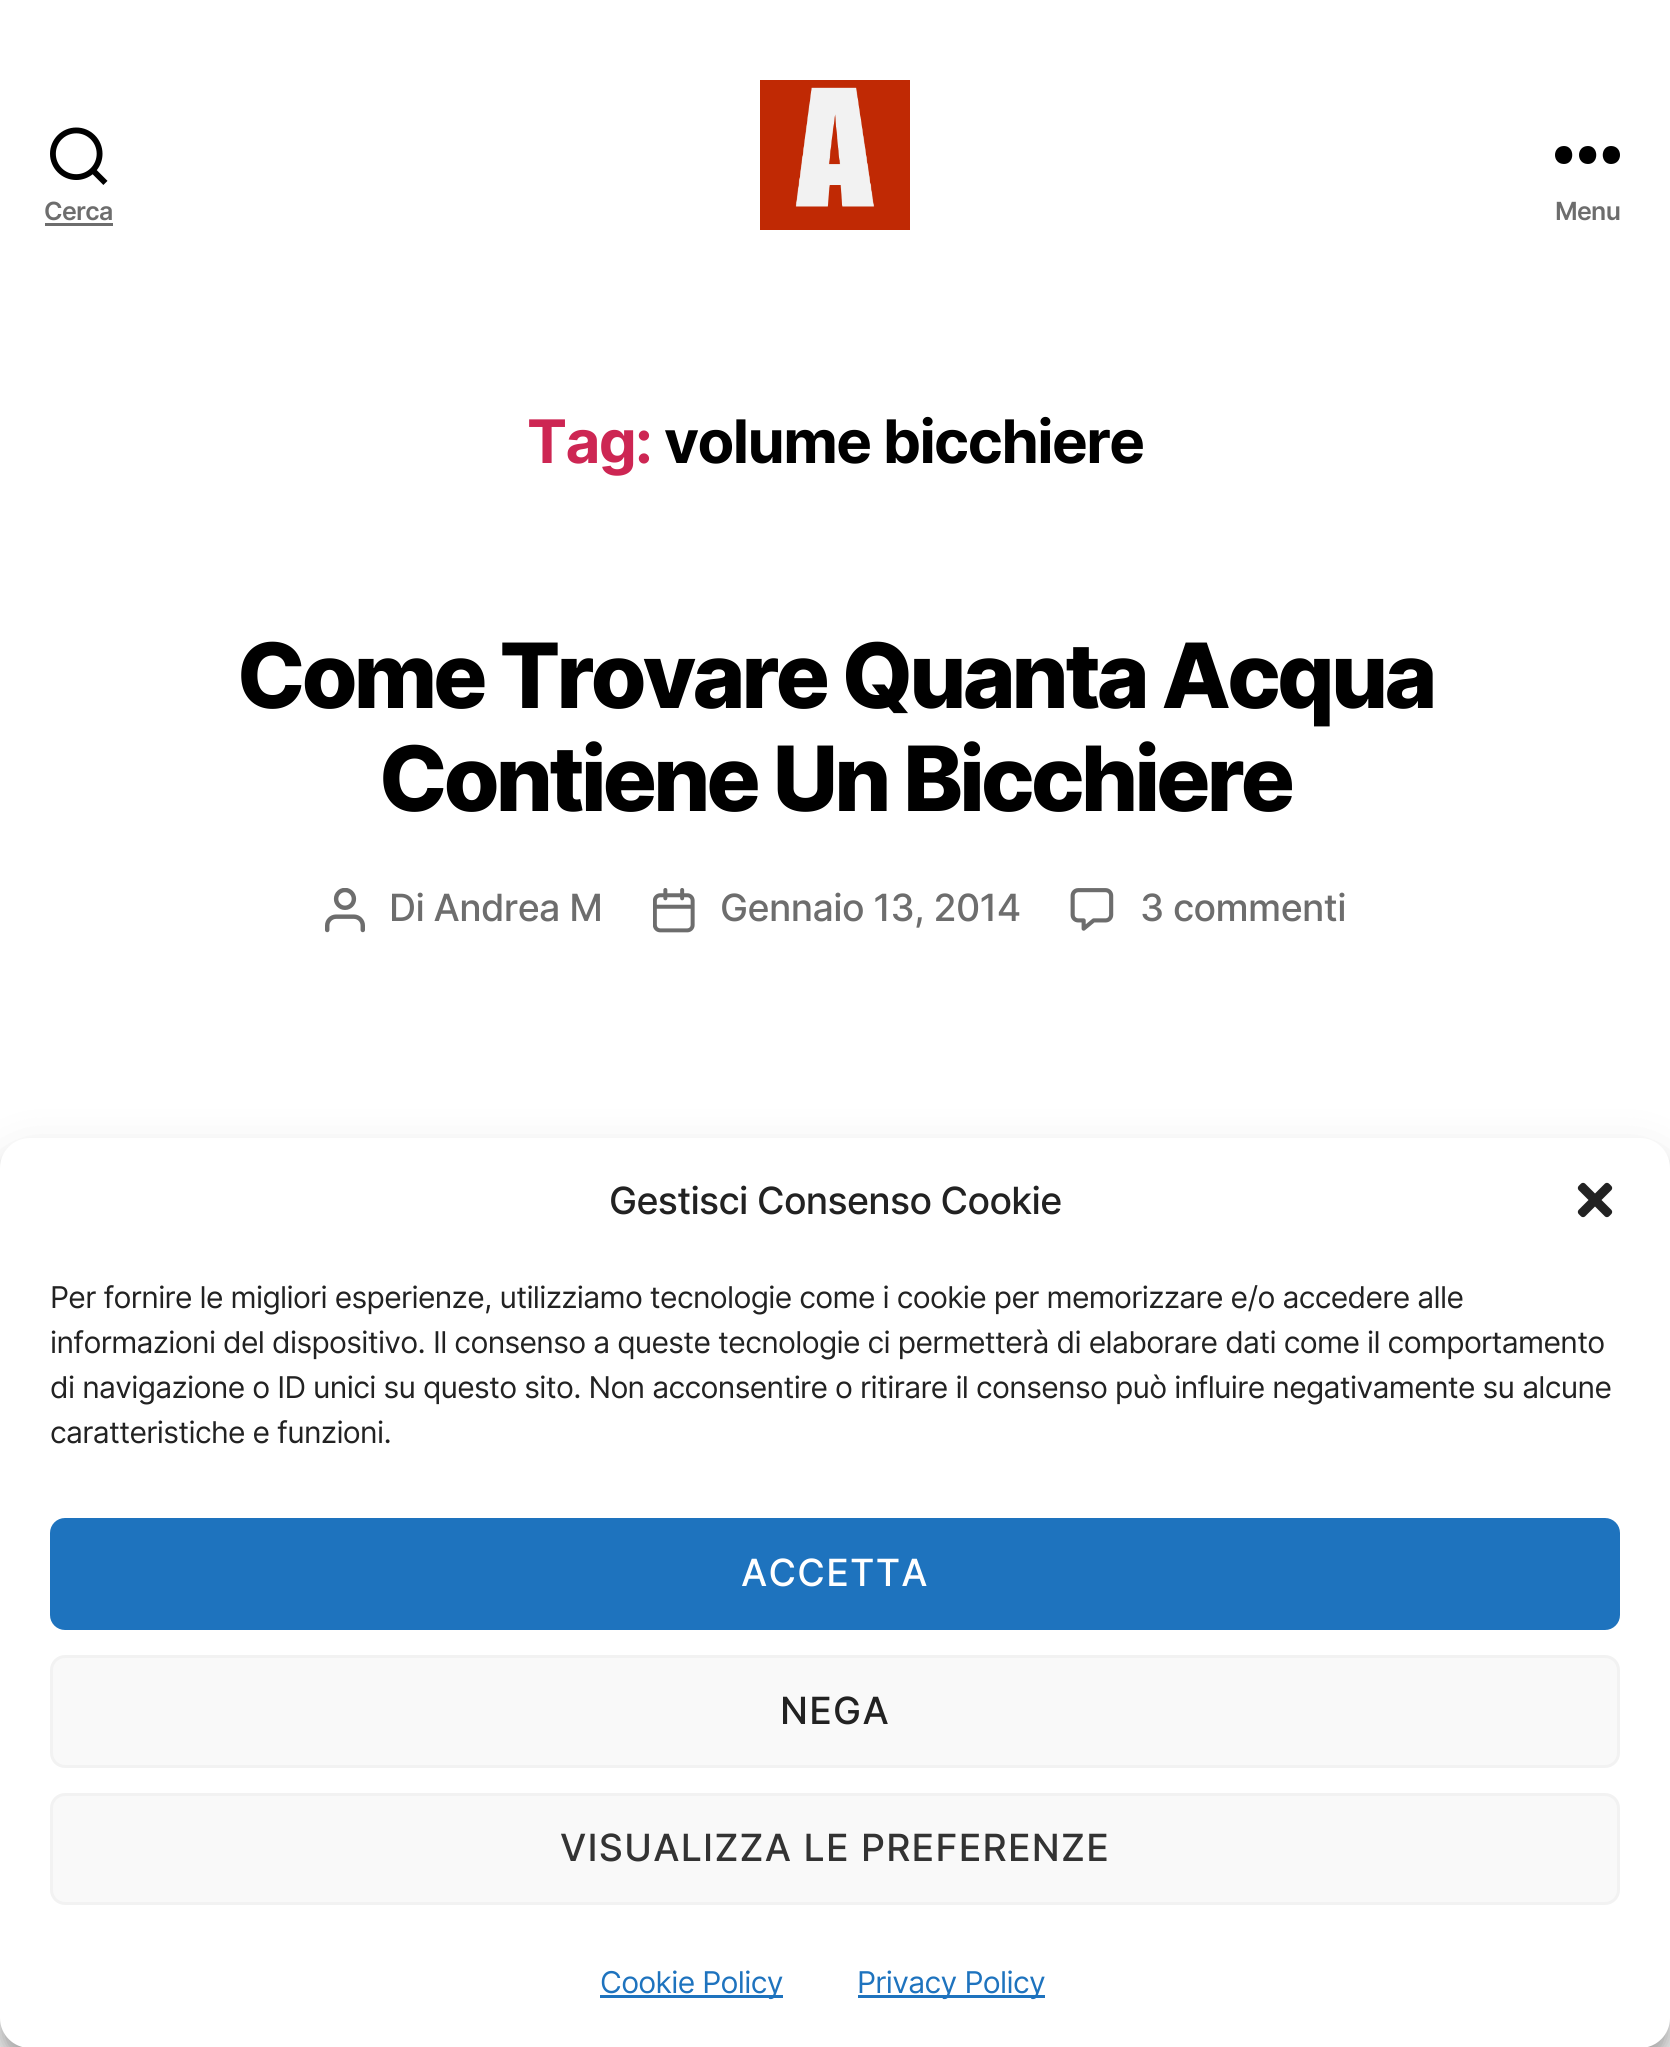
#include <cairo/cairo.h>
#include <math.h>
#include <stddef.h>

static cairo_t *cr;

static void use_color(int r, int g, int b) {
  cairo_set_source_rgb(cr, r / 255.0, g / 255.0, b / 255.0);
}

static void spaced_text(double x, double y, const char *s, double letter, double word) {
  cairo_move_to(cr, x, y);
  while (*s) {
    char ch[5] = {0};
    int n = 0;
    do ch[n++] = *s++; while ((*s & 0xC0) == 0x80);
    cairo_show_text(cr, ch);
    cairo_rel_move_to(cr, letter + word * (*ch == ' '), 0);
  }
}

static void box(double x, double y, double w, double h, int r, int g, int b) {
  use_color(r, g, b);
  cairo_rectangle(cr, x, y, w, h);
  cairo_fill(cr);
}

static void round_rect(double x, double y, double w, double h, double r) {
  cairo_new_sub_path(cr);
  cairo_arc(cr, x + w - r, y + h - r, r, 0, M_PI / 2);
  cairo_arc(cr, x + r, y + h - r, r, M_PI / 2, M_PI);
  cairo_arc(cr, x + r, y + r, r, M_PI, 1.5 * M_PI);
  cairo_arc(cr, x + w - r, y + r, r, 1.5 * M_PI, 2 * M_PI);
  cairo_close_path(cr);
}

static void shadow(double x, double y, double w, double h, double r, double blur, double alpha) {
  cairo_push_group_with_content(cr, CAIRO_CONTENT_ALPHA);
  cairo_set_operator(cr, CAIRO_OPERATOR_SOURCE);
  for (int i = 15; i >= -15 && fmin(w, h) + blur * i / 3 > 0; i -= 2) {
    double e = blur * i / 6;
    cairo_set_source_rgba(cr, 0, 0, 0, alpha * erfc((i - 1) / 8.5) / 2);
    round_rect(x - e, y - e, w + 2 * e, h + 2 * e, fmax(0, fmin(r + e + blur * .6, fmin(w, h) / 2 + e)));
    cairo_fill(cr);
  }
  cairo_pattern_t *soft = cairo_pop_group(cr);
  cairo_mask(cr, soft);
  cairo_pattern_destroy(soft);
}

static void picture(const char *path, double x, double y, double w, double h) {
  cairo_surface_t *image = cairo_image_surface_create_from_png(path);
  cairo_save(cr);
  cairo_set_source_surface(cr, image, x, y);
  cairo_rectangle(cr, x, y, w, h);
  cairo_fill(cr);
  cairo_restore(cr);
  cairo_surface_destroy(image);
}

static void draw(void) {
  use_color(255, 255, 255);
  cairo_paint(cr);
  picture("img_01.png", 50, 127, 58, 58);
  box(45, 223, 68, 3, 109, 109, 109);
  picture("img_02.png", 760, 80, 150, 150);
  use_color(0, 0, 0);
  cairo_set_fill_rule(cr, CAIRO_FILL_RULE_EVEN_ODD);
  cairo_new_path(cr);
  cairo_move_to(cr, 1564, 164);
  cairo_curve_to(cr, 1552, 164, 1552, 146, 1564, 146);
  cairo_curve_to(cr, 1575, 146, 1575, 164, 1564, 164);
  cairo_close_path(cr);
  cairo_move_to(cr, 1588, 164);
  cairo_curve_to(cr, 1576, 164, 1576, 146, 1588, 146);
  cairo_curve_to(cr, 1599, 146, 1599, 164, 1588, 164);
  cairo_close_path(cr);
  cairo_move_to(cr, 1611, 164);
  cairo_curve_to(cr, 1600, 164, 1600, 146, 1611, 146);
  cairo_curve_to(cr, 1623, 146, 1623, 164, 1611, 164);
  cairo_close_path(cr);
  cairo_fill(cr);
  picture("img_03.png", 325, 888, 40, 45);
  picture("img_04.png", 653, 888, 42, 45);
  picture("img_05.png", 1070, 888, 44, 43);
  use_color(0, 0, 0);
  shadow(0, 1153, 1670, 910, 30, 7.5, 0.23);
  shadow(0, 1163, 1670, 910, 30, 25, 0.19);
  use_color(255, 255, 255);
  round_rect(0, 1138, 1670, 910, 30);
  cairo_fill(cr);
  picture("img_06.png", 1577, 1182, 36, 36);
  use_color(30, 115, 190);
  round_rect(51.5, 1519.5, 1567, 109, 13.5);
  cairo_fill_preserve(cr);
  cairo_set_line_width(cr, 3);
  cairo_stroke(cr);
  use_color(249, 249, 249);
  round_rect(51.5, 1656.5, 1567, 110, 13.5);
  cairo_fill_preserve(cr);
  use_color(242, 242, 242);
  cairo_stroke(cr);
  use_color(249, 249, 249);
  round_rect(51.5, 1794.5, 1567, 109, 13.5);
  cairo_fill_preserve(cr);
  use_color(242, 242, 242);
  cairo_stroke(cr);
  box(600, 1995, 183, 3, 30, 115, 190);
  box(858, 1995, 187, 3, 30, 115, 190);
  cairo_select_font_face(cr, "Inter SemiBold", CAIRO_FONT_SLANT_NORMAL, CAIRO_FONT_WEIGHT_NORMAL);
  cairo_set_font_size(cr, 25);
  use_color(109, 109, 109);
  spaced_text(44, 220, "Cerca", -0.68, 0);
  spaced_text(1555, 220, "Menu", -0.68, 0);
  cairo_select_font_face(cr, "Inter", CAIRO_FONT_SLANT_NORMAL, CAIRO_FONT_WEIGHT_BOLD);
  cairo_set_font_size(cr, 60);
  use_color(205, 38, 83);
  spaced_text(527, 463, "Tag:", -1.6, 0);
  use_color(0, 0, 0);
  spaced_text(664, 463, "volume bicchiere", -1.6, 0);
  cairo_select_font_face(cr, "Inter ExtraBold", CAIRO_FONT_SLANT_NORMAL, CAIRO_FONT_WEIGHT_NORMAL);
  cairo_set_font_size(cr, 90);
  spaced_text(237, 708, "Come Trovare Quanta Acqua", -3.75, 0);
  spaced_text(379, 811, "Contiene Un Bicchiere", -3.75, 0);
  cairo_select_font_face(cr, "Inter Medium", CAIRO_FONT_SLANT_NORMAL, CAIRO_FONT_WEIGHT_NORMAL);
  cairo_set_font_size(cr, 37.5);
  use_color(109, 109, 109);
  spaced_text(389, 921, "Di Andrea M", -0.6, 0);
  spaced_text(720, 921, "Gennaio 13, 2014", -0.6, 0);
  spaced_text(1140, 921, "3 commenti", -0.6, 0);
  use_color(34, 34, 34);
  spaced_text(609, 1214, "Gestisci Consenso Cookie", -0.68, 0);
  cairo_select_font_face(cr, "Inter", CAIRO_FONT_SLANT_NORMAL, CAIRO_FONT_WEIGHT_NORMAL);
  cairo_set_font_size(cr, 30);
  spaced_text(50, 1308, "Per fornire le migliori esperienze, utilizziamo tecnologie come i cookie per memorizzare e/o accedere alle", -0.68, 0);
  spaced_text(50, 1353, "informazioni del dispositivo. Il consenso a queste tecnologie ci permetterà di elaborare dati come il comportamento", -0.68, 0);
  spaced_text(50, 1398, "di navigazione o ID unici su questo sito. Non acconsentire o ritirare il consenso può influire negativamente su alcune", -0.68, 0);
  spaced_text(50, 1443, "caratteristiche e funzioni.", -0.68, 0);
  cairo_select_font_face(cr, "Inter Medium", CAIRO_FONT_SLANT_NORMAL, CAIRO_FONT_WEIGHT_NORMAL);
  cairo_set_font_size(cr, 37.5);
  use_color(255, 255, 255);
  spaced_text(741, 1586, "ACCETTA", 1.25, 0);
  use_color(34, 34, 34);
  spaced_text(780, 1724, "NEGA", 1.25, 0);
  use_color(51, 51, 51);
  spaced_text(560, 1861, "VISUALIZZA LE PREFERENZE", 1.25, 0);
  cairo_select_font_face(cr, "Inter", CAIRO_FONT_SLANT_NORMAL, CAIRO_FONT_WEIGHT_NORMAL);
  cairo_set_font_size(cr, 30);
  use_color(30, 115, 190);
  spaced_text(600, 1993, "Cookie Policy", -0.68, 0);
  spaced_text(857, 1993, "Privacy Policy", -0.68, 0);
}

int main(void) {
  cairo_surface_t *surface = cairo_image_surface_create(CAIRO_FORMAT_RGB24, 1670, 2047);
  cr = cairo_create(surface);
  cairo_font_options_t *options = cairo_font_options_create();
  cairo_font_options_set_hint_metrics(options, CAIRO_HINT_METRICS_OFF);
  cairo_font_options_set_hint_style(options, CAIRO_HINT_STYLE_NONE);
  cairo_set_font_options(cr, options);
  cairo_set_miter_limit(cr, 4);
  draw();
  cairo_surface_write_to_png(surface, "out.png");
  cairo_font_options_destroy(options);
  cairo_destroy(cr);
  cairo_surface_destroy(surface);
  return 0;
}
